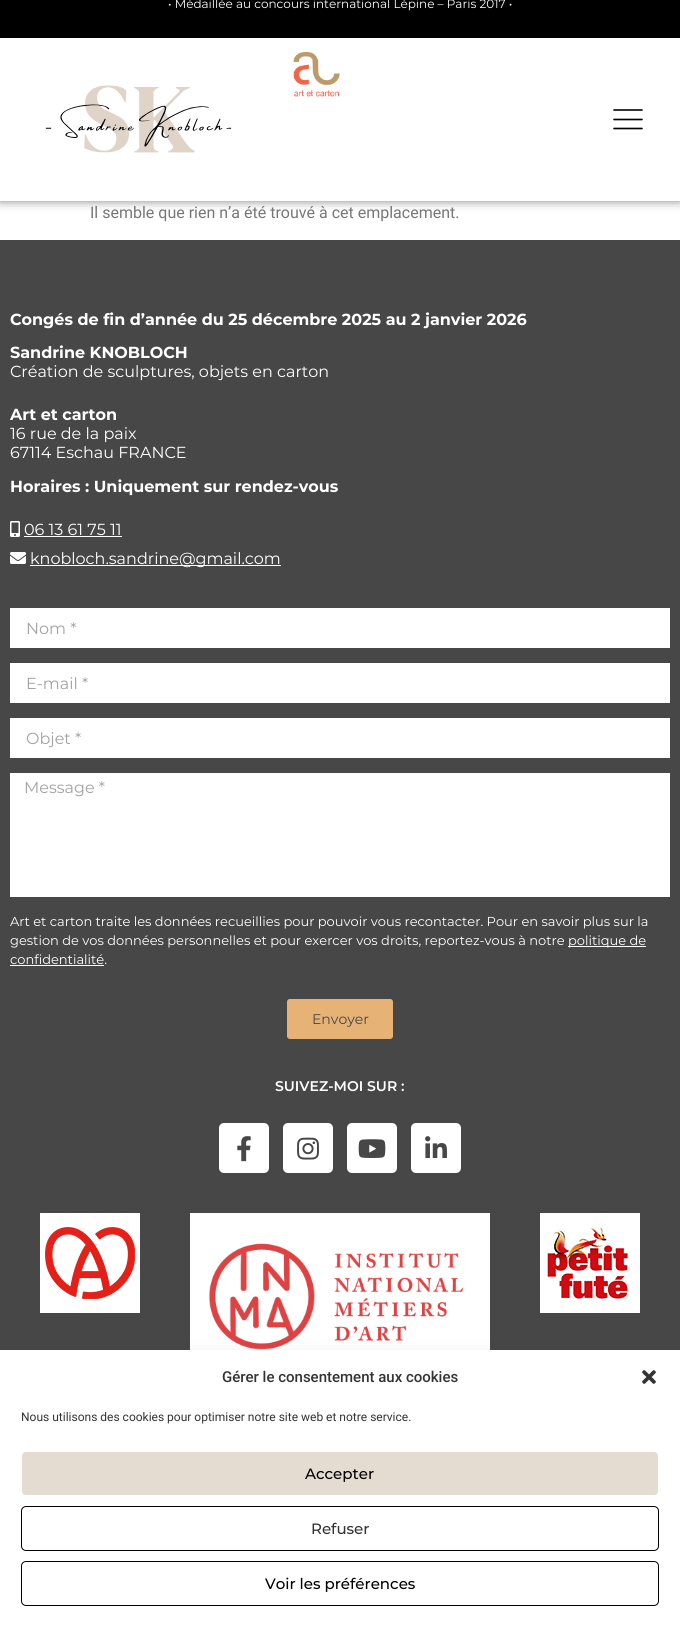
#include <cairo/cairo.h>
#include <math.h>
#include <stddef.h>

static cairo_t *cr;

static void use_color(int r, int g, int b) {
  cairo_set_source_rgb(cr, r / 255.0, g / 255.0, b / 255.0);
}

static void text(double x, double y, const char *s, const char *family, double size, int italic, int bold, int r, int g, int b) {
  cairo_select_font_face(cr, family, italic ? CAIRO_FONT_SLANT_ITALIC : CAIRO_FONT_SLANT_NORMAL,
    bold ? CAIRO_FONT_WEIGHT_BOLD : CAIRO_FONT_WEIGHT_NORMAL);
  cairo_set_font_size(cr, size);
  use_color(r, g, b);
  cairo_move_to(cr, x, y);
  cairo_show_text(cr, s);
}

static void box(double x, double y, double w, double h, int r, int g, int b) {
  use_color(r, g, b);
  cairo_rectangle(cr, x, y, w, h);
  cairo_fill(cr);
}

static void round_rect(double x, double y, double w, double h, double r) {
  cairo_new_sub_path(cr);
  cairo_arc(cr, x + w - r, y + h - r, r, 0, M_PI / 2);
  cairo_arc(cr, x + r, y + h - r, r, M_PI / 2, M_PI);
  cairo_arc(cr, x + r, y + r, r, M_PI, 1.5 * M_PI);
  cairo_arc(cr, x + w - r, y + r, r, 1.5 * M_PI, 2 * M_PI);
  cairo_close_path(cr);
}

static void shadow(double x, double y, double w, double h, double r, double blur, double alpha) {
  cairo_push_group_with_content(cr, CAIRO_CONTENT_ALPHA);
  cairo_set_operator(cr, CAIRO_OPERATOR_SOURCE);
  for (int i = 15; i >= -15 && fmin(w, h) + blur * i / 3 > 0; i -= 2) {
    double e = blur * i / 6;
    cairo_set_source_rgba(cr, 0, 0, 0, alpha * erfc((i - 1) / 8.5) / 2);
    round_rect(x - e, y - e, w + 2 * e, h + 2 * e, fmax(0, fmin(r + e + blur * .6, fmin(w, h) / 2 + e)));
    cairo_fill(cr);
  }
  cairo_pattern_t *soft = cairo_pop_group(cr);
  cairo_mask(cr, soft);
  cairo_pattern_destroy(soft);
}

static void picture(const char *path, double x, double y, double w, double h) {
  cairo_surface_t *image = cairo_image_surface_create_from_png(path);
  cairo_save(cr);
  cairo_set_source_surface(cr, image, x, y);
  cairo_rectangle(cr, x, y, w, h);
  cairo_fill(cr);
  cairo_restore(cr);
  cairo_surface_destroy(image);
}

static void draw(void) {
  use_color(255, 255, 255);
  cairo_paint(cr);
  box(0, 0, 680, 38, 0, 0, 0);
  cairo_save(cr);
  cairo_set_fill_rule(cr, CAIRO_FILL_RULE_EVEN_ODD);
  cairo_new_path(cr);
  cairo_move_to(cr, 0, 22);
  cairo_line_to(cr, 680, 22);
  cairo_line_to(cr, 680, 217);
  cairo_line_to(cr, 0, 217);
  cairo_close_path(cr);
  cairo_move_to(cr, 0, 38);
  cairo_line_to(cr, 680, 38);
  cairo_line_to(cr, 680, 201);
  cairo_line_to(cr, 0, 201);
  cairo_close_path(cr);
  cairo_clip(cr);
  use_color(0, 0, 0);
  shadow(0, 38, 680, 163, 0, 5, 0.5);
  cairo_restore(cr);
  picture("img_01.png", 45, 85, 187, 68);
  picture("img_02.png", 293, 51, 47, 46);
  cairo_new_path(cr);
  cairo_move_to(cr, 614, 110);
  cairo_line_to(cr, 642, 110);
  cairo_move_to(cr, 614, 119.5);
  cairo_line_to(cr, 642, 119.5);
  cairo_move_to(cr, 614, 128.5);
  cairo_line_to(cr, 642, 128.5);
  cairo_set_line_width(cr, 1.6);
  cairo_set_line_cap(cr, CAIRO_LINE_CAP_ROUND);
  cairo_stroke(cr);
  box(0, 240, 680, 1110, 71, 71, 71);
  picture("img_03.png", 10, 521, 10, 16);
  box(24, 536, 98, 1, 255, 255, 255);
  picture("img_04.png", 10, 552, 16, 12);
  box(30, 565, 251, 1, 255, 255, 255);
  box(10, 608, 660, 40, 255, 255, 255);
  box(10, 663, 660, 40, 255, 255, 255);
  box(10, 718, 660, 40, 255, 255, 255);
  box(10, 773, 660, 124, 255, 255, 255);
  box(568, 946, 78, 1, 255, 255, 255);
  box(10, 965, 94, 1, 255, 255, 255);
  use_color(230, 178, 117);
  round_rect(287.5, 999.5, 105, 39, 2.5);
  cairo_fill_preserve(cr);
  cairo_set_line_width(cr, 1);
  cairo_set_line_cap(cr, CAIRO_LINE_CAP_BUTT);
  cairo_stroke(cr);
  use_color(255, 255, 255);
  round_rect(219, 1123, 50, 50, 5);
  cairo_fill(cr);
  picture("img_05.png", 237, 1136, 14, 26);
  round_rect(283, 1123, 50, 50, 5);
  cairo_fill(cr);
  picture("img_06.png", 297, 1137, 22, 23);
  round_rect(347, 1123, 50, 50, 5);
  cairo_fill(cr);
  picture("img_07.png", 358, 1139, 28, 19);
  round_rect(411, 1123, 50, 50, 5);
  cairo_fill(cr);
  picture("img_08.png", 425, 1136, 22, 22);
  picture("img_09.png", 40, 1213, 100, 100);
  picture("img_10.png", 190, 1213, 300, 137);
  picture("img_11.png", 540, 1213, 100, 100);
  use_color(0, 0, 0);
  shadow(0, 1360, 680, 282, 0, 10, 0.19);
  box(0, 1350, 680, 282, 255, 255, 255);
  picture("img_12.png", 642, 1370, 14, 14);
  use_color(228, 220, 209);
  round_rect(21.5, 1451.5, 637, 44, 4.5);
  cairo_fill_preserve(cr);
  use_color(255, 255, 255);
  cairo_stroke(cr);
  round_rect(21.5, 1506.5, 637, 44, 4.5);
  use_color(0, 0, 0);
  cairo_stroke(cr);
  round_rect(21.5, 1561.5, 637, 44, 4.5);
  cairo_stroke(cr);
  text(168, 8, "• Médaillée au concours international Lépine – Paris 2017 •", "Montserrat", 12, 0, 0, 255, 255, 255);
  text(90, 218, "Il semble que rien n’a été trouvé à cet emplacement.", "Roboto", 16, 0, 0, 119, 119, 119);
  text(10, 325, "Congés de fin d’année du 25 décembre 2025 au 2 janvier 2026", "Montserrat", 16, 0, 1, 255, 255, 255);
  text(10, 358, "Sandrine KNOBLOCH", "Montserrat", 16, 0, 1, 255, 255, 255);
  text(10, 377, "Création de sculptures, objets en carton", "Montserrat", 16, 0, 0, 255, 255, 255);
  text(10, 420, "Art et carton", "Montserrat", 16, 0, 1, 255, 255, 255);
  text(10, 439, "16 rue de la paix", "Montserrat", 16, 0, 0, 255, 255, 255);
  text(10, 458, "67114 Eschau FRANCE", "Montserrat", 16, 0, 0, 255, 255, 255);
  text(10, 492, "Horaires : Uniquement sur rendez-vous", "Montserrat", 16, 0, 1, 255, 255, 255);
  text(24, 535, "06 13 61 75 11", "Montserrat", 16, 0, 0, 255, 255, 255);
  text(30, 564, "knobloch.sandrine@gmail.com", "Montserrat", 16, 0, 0, 255, 255, 255);
  text(26, 634, "Nom *", "Montserrat", 16, 0, 0, 163, 163, 163);
  text(26, 689, "E-mail *", "Montserrat", 16, 0, 0, 163, 163, 163);
  text(26, 744, "Objet *", "Montserrat", 16, 0, 0, 163, 163, 163);
  text(24, 793, "Message *", "Montserrat", 16, 0, 0, 163, 163, 163);
  text(10, 926, "Art et carton traite les données recueillies pour pouvoir vous recontacter. Pour en savoir plus sur la", "Montserrat", 13, 0, 0, 255, 255, 255);
  text(10, 945, "gestion de vos données personnelles et pour exercer vos droits, reportez-vous à notre", "Montserrat", 13, 0, 0, 255, 255, 255);
  text(568, 945, "politique de", "Montserrat", 13, 0, 0, 255, 255, 255);
  text(10, 964, "confidentialité.", "Montserrat", 13, 0, 0, 255, 255, 255);
  text(312, 1024, "Envoyer", "Montserrat", 14, 0, 0, 71, 71, 71);
  text(275, 1091, "SUIVEZ-MOI SUR :", "Montserrat SemiBold", 14, 0, 0, 255, 255, 255);
  text(222, 1382, "Gérer le consentement aux cookies", "Roboto Medium", 15, 0, 0, 51, 51, 51);
  text(21, 1421, "Nous utilisons des cookies pour optimiser notre site web et notre service.", "Roboto", 12, 0, 0, 51, 51, 51);
  text(305, 1479, "Accepter", "Montserrat Medium", 15, 0, 0, 0, 0, 0);
  text(311, 1534, "Refuser", "Montserrat Medium", 15, 0, 0, 51, 51, 51);
  text(265, 1589, "Voir les préférences", "Montserrat Medium", 15, 0, 0, 0, 0, 0);
}

int main(void) {
  cairo_surface_t *surface = cairo_image_surface_create(CAIRO_FORMAT_RGB24, 680, 1632);
  cr = cairo_create(surface);
  cairo_font_options_t *options = cairo_font_options_create();
  cairo_font_options_set_hint_metrics(options, CAIRO_HINT_METRICS_OFF);
  cairo_font_options_set_hint_style(options, CAIRO_HINT_STYLE_NONE);
  cairo_set_font_options(cr, options);
  cairo_set_miter_limit(cr, 4);
  draw();
  cairo_surface_write_to_png(surface, "out.png");
  cairo_font_options_destroy(options);
  cairo_destroy(cr);
  cairo_surface_destroy(surface);
  return 0;
}
